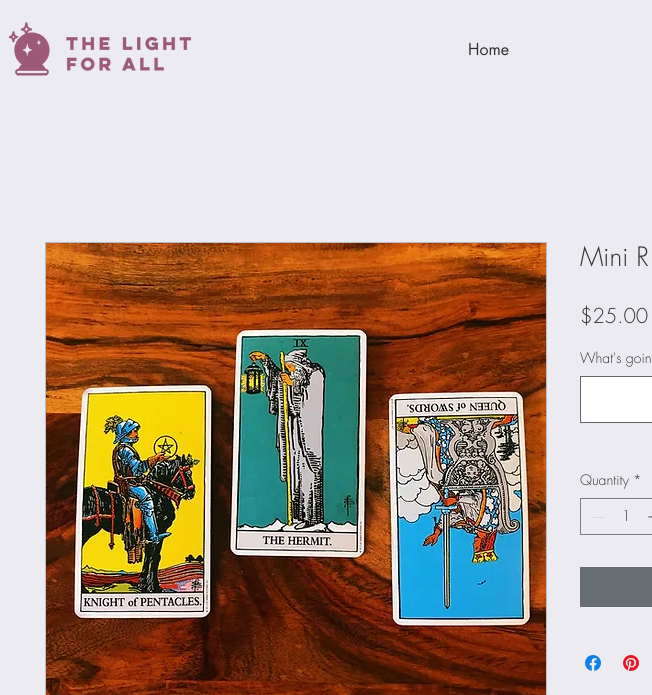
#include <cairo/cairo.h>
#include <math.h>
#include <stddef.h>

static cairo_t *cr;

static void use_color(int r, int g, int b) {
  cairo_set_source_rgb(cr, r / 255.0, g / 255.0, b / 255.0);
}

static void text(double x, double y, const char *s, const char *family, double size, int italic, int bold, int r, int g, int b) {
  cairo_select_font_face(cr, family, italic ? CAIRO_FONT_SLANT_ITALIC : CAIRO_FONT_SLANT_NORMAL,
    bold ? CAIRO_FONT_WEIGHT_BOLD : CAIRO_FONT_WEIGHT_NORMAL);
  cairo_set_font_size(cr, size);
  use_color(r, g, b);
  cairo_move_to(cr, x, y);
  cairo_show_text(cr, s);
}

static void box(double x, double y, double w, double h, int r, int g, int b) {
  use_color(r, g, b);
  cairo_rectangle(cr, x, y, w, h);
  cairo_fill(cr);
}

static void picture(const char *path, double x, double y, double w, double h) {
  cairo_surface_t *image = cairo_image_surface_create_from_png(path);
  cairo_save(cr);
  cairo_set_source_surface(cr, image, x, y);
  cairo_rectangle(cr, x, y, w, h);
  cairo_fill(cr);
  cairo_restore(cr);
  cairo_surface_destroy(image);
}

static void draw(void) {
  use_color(237, 235, 242);
  cairo_paint(cr);
  picture("img_01.png", 8, 22, 184, 54);
  cairo_rectangle(cr, 45.5, 242.5, 501, 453);
  use_color(190, 188, 194);
  cairo_set_line_width(cr, 1);
  cairo_stroke(cr);
  picture("img_02.png", 46, 243, 500, 452);
  use_color(255, 255, 255);
  cairo_rectangle(cr, 580.5, 376.5, 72, 46);
  cairo_fill_preserve(cr);
  use_color(102, 102, 102);
  cairo_stroke(cr);
  cairo_rectangle(cr, 580.5, 498.5, 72, 36);
  use_color(123, 122, 126);
  cairo_stroke(cr);
  box(592, 517, 13, 1, 218, 217, 221);
  picture("img_03.png", 648, 516, 4, 2);
  box(580, 567, 72, 40, 103, 110, 113);
  picture("img_04.png", 585, 655, 16, 16);
  picture("img_05.png", 623, 655, 16, 16);
  text(468, 55, "Home", "futura", 16, 0, 0, 47, 47, 48);
  text(580, 266, "Mini R", "futura Light", 26, 0, 0, 47, 47, 48);
  text(580, 323, "$25.00", "futura Light", 20, 0, 0, 47, 47, 48);
  text(580, 363, "What's goin", "futura Light", 14, 0, 0, 47, 47, 48);
  text(580, 485, "Quantity", "futura Light", 14, 0, 0, 47, 47, 48);
  text(633, 485, "*", "futura Light", 14, 0, 0, 47, 47, 48);
  text(622, 521, "1", "futura Light", 14, 0, 0, 47, 47, 48);
}

int main(void) {
  cairo_surface_t *surface = cairo_image_surface_create(CAIRO_FORMAT_RGB24, 652, 695);
  cr = cairo_create(surface);
  cairo_font_options_t *options = cairo_font_options_create();
  cairo_font_options_set_hint_metrics(options, CAIRO_HINT_METRICS_OFF);
  cairo_font_options_set_hint_style(options, CAIRO_HINT_STYLE_NONE);
  cairo_set_font_options(cr, options);
  cairo_set_miter_limit(cr, 4);
  draw();
  cairo_surface_write_to_png(surface, "out.png");
  cairo_font_options_destroy(options);
  cairo_destroy(cr);
  cairo_surface_destroy(surface);
  return 0;
}
